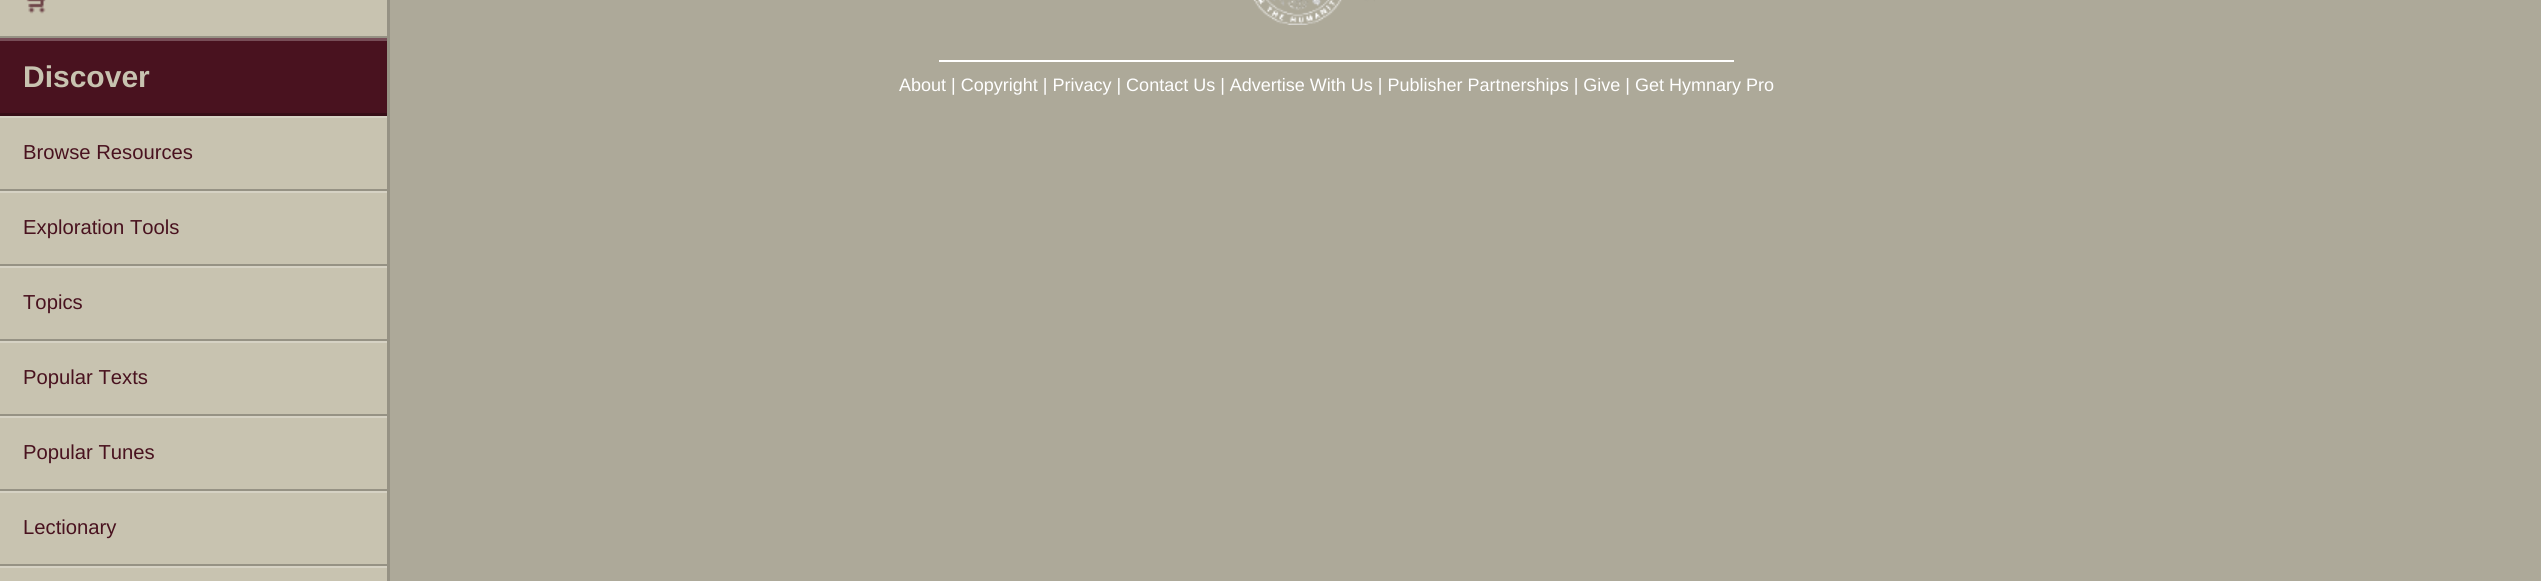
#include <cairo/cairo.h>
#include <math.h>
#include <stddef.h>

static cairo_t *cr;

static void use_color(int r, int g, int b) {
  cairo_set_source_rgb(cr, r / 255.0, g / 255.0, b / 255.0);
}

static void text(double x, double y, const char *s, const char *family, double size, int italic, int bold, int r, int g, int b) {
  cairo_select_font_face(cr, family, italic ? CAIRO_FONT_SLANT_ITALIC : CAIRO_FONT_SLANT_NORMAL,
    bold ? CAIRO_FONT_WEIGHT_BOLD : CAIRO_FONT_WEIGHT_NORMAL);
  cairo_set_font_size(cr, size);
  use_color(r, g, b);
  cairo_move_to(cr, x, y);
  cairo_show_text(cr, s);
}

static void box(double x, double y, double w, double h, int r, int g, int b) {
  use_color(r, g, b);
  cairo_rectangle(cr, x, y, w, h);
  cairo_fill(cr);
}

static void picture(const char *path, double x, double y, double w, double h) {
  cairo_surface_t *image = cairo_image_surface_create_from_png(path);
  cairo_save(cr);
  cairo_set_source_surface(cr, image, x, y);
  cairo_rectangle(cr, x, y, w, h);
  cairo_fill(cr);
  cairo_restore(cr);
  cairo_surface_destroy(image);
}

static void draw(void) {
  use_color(173, 169, 153);
  cairo_paint(cr);
  box(0, 0, 387, 581, 200, 195, 176);
  box(387, 0, 3, 581, 150, 146, 132);
  box(0, 36, 387, 2, 150, 146, 132);
  picture("img_01.png", 26, 0, 20, 14);
  box(0, 41, 387, 72, 73, 18, 31);
  box(0, 38, 387, 3, 119, 77, 87);
  box(0, 113, 387, 3, 55, 14, 23);
  box(0, 116, 387, 2, 214, 210, 196);
  box(0, 189, 387, 2, 150, 146, 132);
  box(0, 191, 387, 2, 214, 210, 196);
  box(0, 264, 387, 2, 150, 146, 132);
  box(0, 266, 387, 2, 214, 210, 196);
  box(0, 339, 387, 2, 150, 146, 132);
  box(0, 341, 387, 2, 214, 210, 196);
  box(0, 414, 387, 2, 150, 146, 132);
  box(0, 416, 387, 2, 214, 210, 196);
  box(0, 489, 387, 2, 150, 146, 132);
  box(0, 491, 387, 2, 214, 210, 196);
  box(0, 564, 387, 2, 150, 146, 132);
  box(0, 566, 387, 2, 214, 210, 196);
  picture("img_02.png", 1253, 0, 122, 25);
  box(939, 60, 795, 2, 255, 255, 255);
  text(23, 87, "Discover", "Liberation Sans", 30, 0, 1, 200, 195, 176);
  text(23, 159, "Browse Resources", "Liberation Sans", 20.25, 0, 0, 73, 18, 31);
  text(23, 234, "Exploration Tools", "Liberation Sans", 20.25, 0, 0, 73, 18, 31);
  text(23, 309, "Topics", "Liberation Sans", 20.25, 0, 0, 73, 18, 31);
  text(23, 384, "Popular Texts", "Liberation Sans", 20.25, 0, 0, 73, 18, 31);
  text(23, 459, "Popular Tunes", "Liberation Sans", 20.25, 0, 0, 73, 18, 31);
  text(23, 534, "Lectionary", "Liberation Sans", 20.25, 0, 0, 73, 18, 31);
  text(899, 91, "About | Copyright | Privacy | Contact Us | Advertise With Us | Publisher Partnerships | Give | Get Hymnary Pro", "Liberation Sans", 18, 0, 0, 255, 255, 255);
}

int main(void) {
  cairo_surface_t *surface = cairo_image_surface_create(CAIRO_FORMAT_RGB24, 2541, 581);
  cr = cairo_create(surface);
  cairo_font_options_t *options = cairo_font_options_create();
  cairo_font_options_set_hint_metrics(options, CAIRO_HINT_METRICS_OFF);
  cairo_font_options_set_hint_style(options, CAIRO_HINT_STYLE_NONE);
  cairo_set_font_options(cr, options);
  cairo_set_miter_limit(cr, 4);
  draw();
  cairo_surface_write_to_png(surface, "out.png");
  cairo_font_options_destroy(options);
  cairo_destroy(cr);
  cairo_surface_destroy(surface);
  return 0;
}
